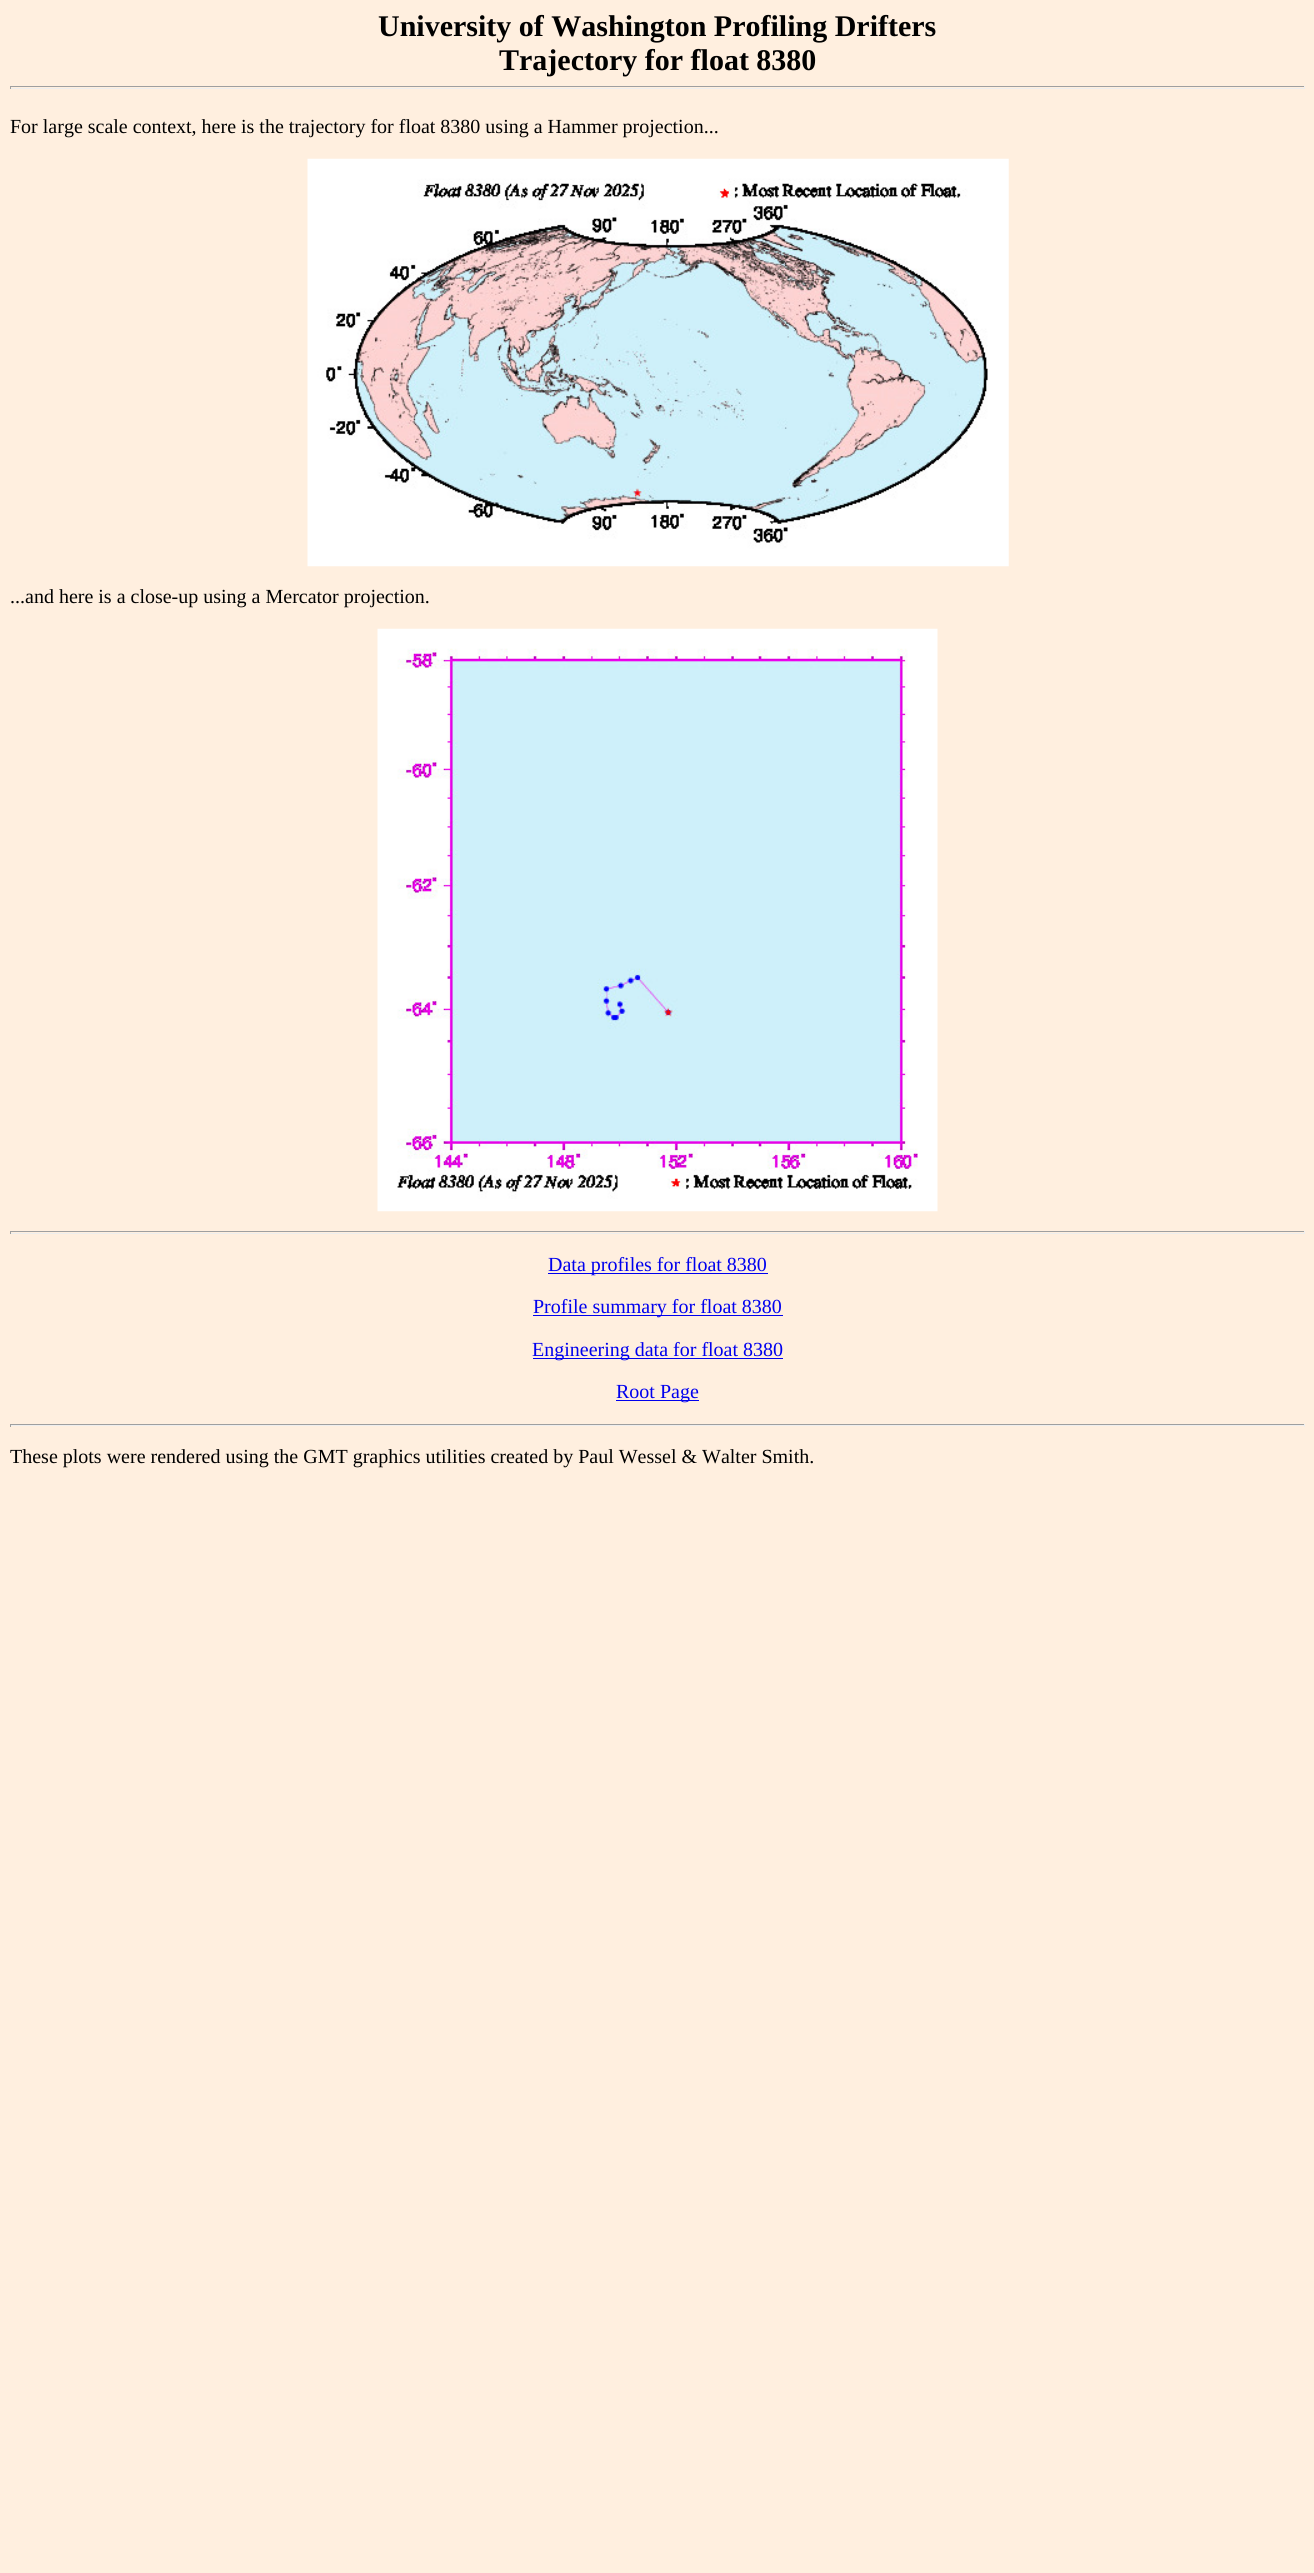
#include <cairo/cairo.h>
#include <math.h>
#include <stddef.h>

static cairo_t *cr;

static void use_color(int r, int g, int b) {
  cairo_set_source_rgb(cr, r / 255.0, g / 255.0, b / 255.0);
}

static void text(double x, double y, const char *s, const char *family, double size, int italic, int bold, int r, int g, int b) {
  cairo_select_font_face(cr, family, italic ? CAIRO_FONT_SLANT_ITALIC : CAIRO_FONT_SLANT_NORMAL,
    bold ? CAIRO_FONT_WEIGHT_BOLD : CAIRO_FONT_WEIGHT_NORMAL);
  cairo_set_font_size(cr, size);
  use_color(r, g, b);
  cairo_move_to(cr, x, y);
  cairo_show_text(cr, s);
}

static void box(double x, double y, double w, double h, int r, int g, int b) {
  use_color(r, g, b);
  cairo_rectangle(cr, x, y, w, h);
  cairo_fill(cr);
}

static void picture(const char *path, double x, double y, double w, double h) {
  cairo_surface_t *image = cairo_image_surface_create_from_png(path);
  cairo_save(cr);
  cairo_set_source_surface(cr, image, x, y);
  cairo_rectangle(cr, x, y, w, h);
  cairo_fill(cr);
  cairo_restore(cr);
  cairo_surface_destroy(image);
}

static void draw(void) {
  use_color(255, 239, 223);
  cairo_paint(cr);
  box(10, 86, 1295, 1, 159, 159, 159);
  box(1304, 86, 1, 3, 238, 238, 238);
  box(10, 88, 1295, 1, 238, 238, 238);
  box(10, 86, 1, 3, 159, 159, 159);
  picture("img_01.png", 307, 158, 702, 409);
  picture("img_02.png", 377, 628, 561, 584);
  box(10, 1231, 1295, 1, 159, 159, 159);
  box(1304, 1231, 1, 3, 238, 238, 238);
  box(10, 1233, 1295, 1, 238, 238, 238);
  box(10, 1231, 1, 3, 159, 159, 159);
  box(548, 1273, 220, 1, 0, 0, 238);
  box(533, 1315, 250, 1, 0, 0, 238);
  box(533, 1358, 250, 1, 0, 0, 238);
  box(616, 1400, 83, 1, 0, 0, 238);
  box(10, 1424, 1295, 1, 159, 159, 159);
  box(1304, 1424, 1, 3, 238, 238, 238);
  box(10, 1425, 1295, 1, 238, 238, 238);
  box(10, 1424, 1, 3, 159, 159, 159);
  text(378, 36, "University of Washington Profiling Drifters", "Liberation Serif", 30, 0, 1, 0, 0, 0);
  text(499, 70, "Trajectory for float 8380", "Liberation Serif", 30, 0, 1, 0, 0, 0);
  text(10, 133, "For large scale context, here is the trajectory for float 8380 using a Hammer projection...", "Liberation Serif", 20, 0, 0, 0, 0, 0);
  text(10, 603, "...and here is a close-up using a Mercator projection.", "Liberation Serif", 20, 0, 0, 0, 0, 0);
  text(548, 1271, "Data profiles for float 8380", "Liberation Serif", 20, 0, 0, 0, 0, 238);
  text(533, 1313, "Profile summary for float 8380", "Liberation Serif", 20, 0, 0, 0, 0, 238);
  text(532, 1356, "Engineering data for float 8380", "Liberation Serif", 20, 0, 0, 0, 0, 238);
  text(616, 1398, "Root Page", "Liberation Serif", 20, 0, 0, 0, 0, 238);
  text(10, 1463, "These plots were rendered using the GMT graphics utilities created by Paul Wessel & Walter Smith.", "Liberation Serif", 20, 0, 0, 0, 0, 0);
}

int main(void) {
  cairo_surface_t *surface = cairo_image_surface_create(CAIRO_FORMAT_RGB24, 1314, 2573);
  cr = cairo_create(surface);
  cairo_font_options_t *options = cairo_font_options_create();
  cairo_font_options_set_hint_metrics(options, CAIRO_HINT_METRICS_OFF);
  cairo_font_options_set_hint_style(options, CAIRO_HINT_STYLE_NONE);
  cairo_set_font_options(cr, options);
  cairo_set_miter_limit(cr, 4);
  draw();
  cairo_surface_write_to_png(surface, "out.png");
  cairo_font_options_destroy(options);
  cairo_destroy(cr);
  cairo_surface_destroy(surface);
  return 0;
}
